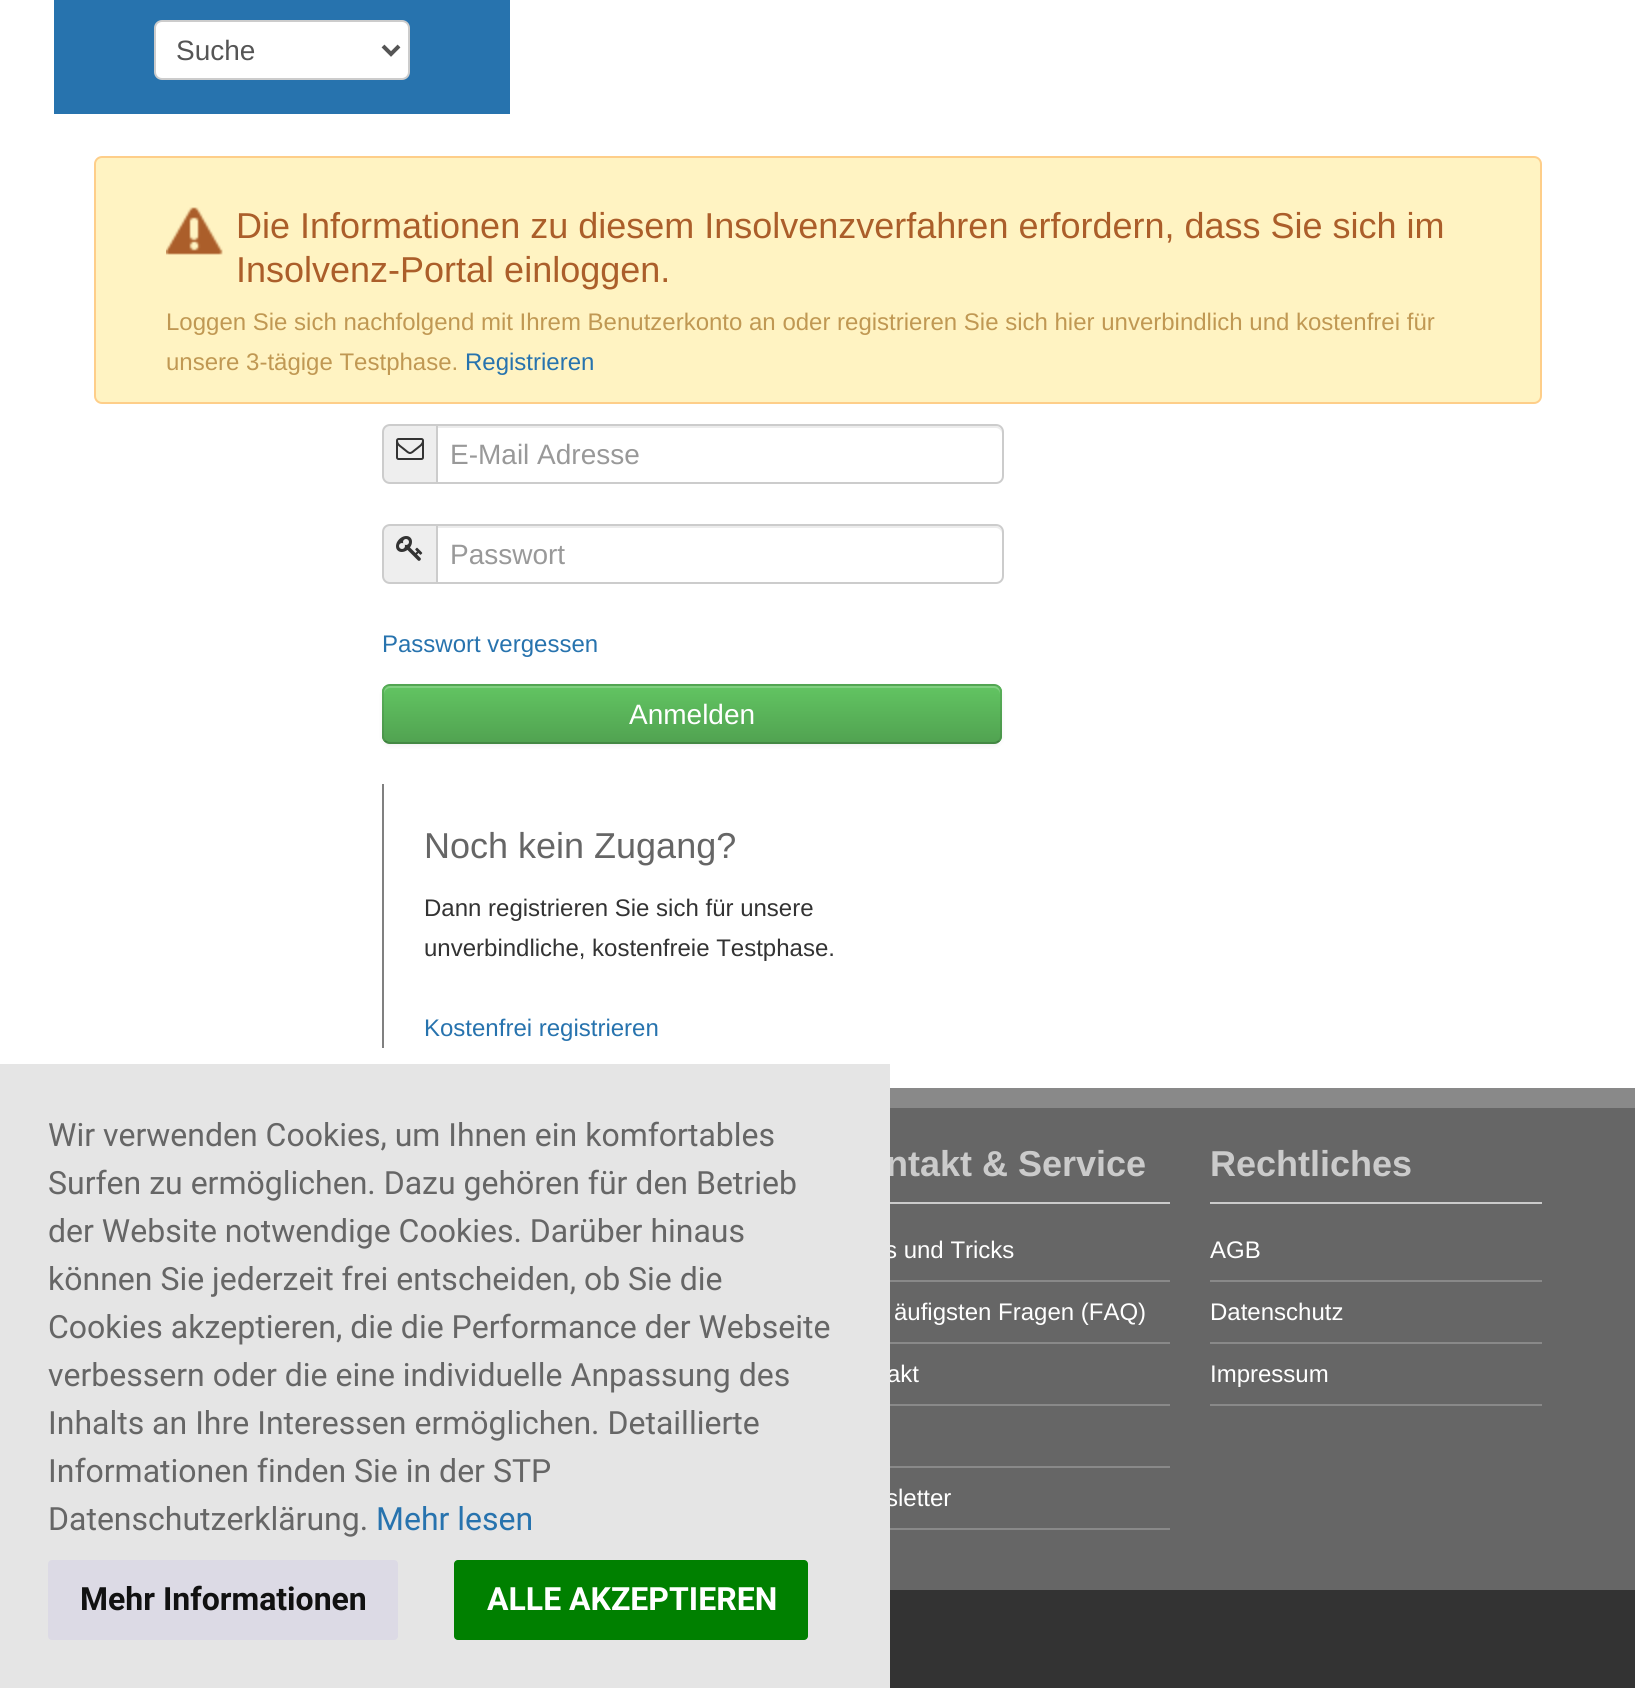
#include <cairo/cairo.h>
#include <math.h>
#include <stddef.h>

static cairo_t *cr;

static void use_color(int r, int g, int b) {
  cairo_set_source_rgb(cr, r / 255.0, g / 255.0, b / 255.0);
}

static void text(double x, double y, const char *s, const char *family, double size, int italic, int bold, int r, int g, int b) {
  cairo_select_font_face(cr, family, italic ? CAIRO_FONT_SLANT_ITALIC : CAIRO_FONT_SLANT_NORMAL,
    bold ? CAIRO_FONT_WEIGHT_BOLD : CAIRO_FONT_WEIGHT_NORMAL);
  cairo_set_font_size(cr, size);
  use_color(r, g, b);
  cairo_move_to(cr, x, y);
  cairo_show_text(cr, s);
}

static void box(double x, double y, double w, double h, int r, int g, int b) {
  use_color(r, g, b);
  cairo_rectangle(cr, x, y, w, h);
  cairo_fill(cr);
}

static void round_rect(double x, double y, double w, double h, double r) {
  cairo_new_sub_path(cr);
  cairo_arc(cr, x + w - r, y + h - r, r, 0, M_PI / 2);
  cairo_arc(cr, x + r, y + h - r, r, M_PI / 2, M_PI);
  cairo_arc(cr, x + r, y + r, r, M_PI, 1.5 * M_PI);
  cairo_arc(cr, x + w - r, y + r, r, 1.5 * M_PI, 2 * M_PI);
  cairo_close_path(cr);
}

static void shadow(double x, double y, double w, double h, double r, double blur, double alpha) {
  cairo_push_group_with_content(cr, CAIRO_CONTENT_ALPHA);
  cairo_set_operator(cr, CAIRO_OPERATOR_SOURCE);
  for (int i = 15; i >= -15 && fmin(w, h) + blur * i / 3 > 0; i -= 2) {
    double e = blur * i / 6;
    cairo_set_source_rgba(cr, 0, 0, 0, alpha * erfc((i - 1) / 8.5) / 2);
    round_rect(x - e, y - e, w + 2 * e, h + 2 * e, fmax(0, fmin(r + e + blur * .6, fmin(w, h) / 2 + e)));
    cairo_fill(cr);
  }
  cairo_pattern_t *soft = cairo_pop_group(cr);
  cairo_mask(cr, soft);
  cairo_pattern_destroy(soft);
}

static void picture(const char *path, double x, double y, double w, double h) {
  cairo_surface_t *image = cairo_image_surface_create_from_png(path);
  cairo_save(cr);
  cairo_set_source_surface(cr, image, x, y);
  cairo_rectangle(cr, x, y, w, h);
  cairo_fill(cr);
  cairo_restore(cr);
  cairo_surface_destroy(image);
}

static void draw(void) {
  cairo_pattern_t *gradient;
  use_color(255, 255, 255);
  cairo_paint(cr);
  box(54, 0, 456, 114, 39, 115, 174);
  use_color(255, 255, 255);
  round_rect(155, 21, 254, 58, 7);
  cairo_fill_preserve(cr);
  use_color(204, 204, 204);
  cairo_stroke(cr);
  cairo_new_path(cr);
  cairo_move_to(cr, 383, 46);
  cairo_line_to(cr, 391, 54);
  cairo_line_to(cr, 399, 46);
  use_color(85, 85, 85);
  cairo_set_line_width(cr, 4);
  cairo_stroke(cr);
  use_color(255, 243, 194);
  round_rect(95, 157, 1446, 246, 7);
  cairo_fill_preserve(cr);
  use_color(254, 206, 137);
  cairo_set_line_width(cr, 2);
  cairo_stroke(cr);
  picture("img_01.png", 166, 207, 57, 48);
  use_color(238, 238, 238);
  cairo_new_path(cr);
  cairo_move_to(cr, 390, 425);
  cairo_line_to(cr, 437, 425);
  cairo_line_to(cr, 437, 483);
  cairo_line_to(cr, 390, 483);
  cairo_curve_to(cr, 386, 483, 383, 480, 383, 476);
  cairo_line_to(cr, 383, 432);
  cairo_curve_to(cr, 383, 428, 386, 425, 390, 425);
  cairo_close_path(cr);
  cairo_fill_preserve(cr);
  use_color(204, 204, 204);
  cairo_stroke(cr);
  picture("img_02.png", 396, 438, 28, 22);
  use_color(255, 255, 255);
  cairo_new_path(cr);
  cairo_move_to(cr, 436, 424);
  cairo_line_to(cr, 996, 424);
  cairo_curve_to(cr, 1000.5, 424, 1004, 427.5, 1004, 432);
  cairo_line_to(cr, 1004, 476);
  cairo_curve_to(cr, 1004, 480.5, 1000.5, 484, 996, 484);
  cairo_line_to(cr, 436, 484);
  cairo_close_path(cr);
  cairo_fill(cr);
  use_color(236, 236, 236);
  cairo_new_path(cr);
  cairo_move_to(cr, 438, 428);
  cairo_line_to(cr, 996, 428);
  cairo_curve_to(cr, 999, 428, 1002, 431, 1002, 434);
  cairo_line_to(cr, 1002, 432);
  cairo_curve_to(cr, 1002, 429, 999, 426, 996, 426);
  cairo_line_to(cr, 438, 426);
  cairo_close_path(cr);
  cairo_fill(cr);
  cairo_new_path(cr);
  cairo_move_to(cr, 437, 425);
  cairo_line_to(cr, 996, 425);
  cairo_curve_to(cr, 1000, 425, 1003, 428, 1003, 432);
  cairo_line_to(cr, 1003, 476);
  cairo_curve_to(cr, 1003, 480, 1000, 483, 996, 483);
  cairo_line_to(cr, 437, 483);
  cairo_close_path(cr);
  use_color(204, 204, 204);
  cairo_stroke(cr);
  use_color(238, 238, 238);
  cairo_new_path(cr);
  cairo_move_to(cr, 390, 525);
  cairo_line_to(cr, 437, 525);
  cairo_line_to(cr, 437, 583);
  cairo_line_to(cr, 390, 583);
  cairo_curve_to(cr, 386, 583, 383, 580, 383, 576);
  cairo_line_to(cr, 383, 532);
  cairo_curve_to(cr, 383, 528, 386, 525, 390, 525);
  cairo_close_path(cr);
  cairo_fill_preserve(cr);
  use_color(204, 204, 204);
  cairo_stroke(cr);
  picture("img_03.png", 396, 536, 27, 25);
  use_color(255, 255, 255);
  cairo_new_path(cr);
  cairo_move_to(cr, 436, 524);
  cairo_line_to(cr, 996, 524);
  cairo_curve_to(cr, 1000.5, 524, 1004, 527.5, 1004, 532);
  cairo_line_to(cr, 1004, 576);
  cairo_curve_to(cr, 1004, 580.5, 1000.5, 584, 996, 584);
  cairo_line_to(cr, 436, 584);
  cairo_close_path(cr);
  cairo_fill(cr);
  use_color(236, 236, 236);
  cairo_new_path(cr);
  cairo_move_to(cr, 438, 528);
  cairo_line_to(cr, 996, 528);
  cairo_curve_to(cr, 999, 528, 1002, 531, 1002, 534);
  cairo_line_to(cr, 1002, 532);
  cairo_curve_to(cr, 1002, 529, 999, 526, 996, 526);
  cairo_line_to(cr, 438, 526);
  cairo_close_path(cr);
  cairo_fill(cr);
  cairo_new_path(cr);
  cairo_move_to(cr, 437, 525);
  cairo_line_to(cr, 996, 525);
  cairo_curve_to(cr, 1000, 525, 1003, 528, 1003, 532);
  cairo_line_to(cr, 1003, 576);
  cairo_curve_to(cr, 1003, 580, 1000, 583, 996, 583);
  cairo_line_to(cr, 437, 583);
  cairo_close_path(cr);
  use_color(204, 204, 204);
  cairo_stroke(cr);
  use_color(0, 0, 0);
  shadow(382, 686, 620, 60, 8, 2, 0.05);
  use_color(91, 183, 91);
  round_rect(382, 684, 620, 60, 8);
  cairo_fill(cr);
  cairo_save(cr);
  round_rect(382, 684, 620, 60, 8);
  cairo_clip(cr);
  gradient = cairo_pattern_create_linear(692, 686, 692, 742);
  cairo_pattern_add_color_stop_rgba(gradient, 0, 0.384, 0.769, 0.384, 1);
  cairo_pattern_add_color_stop_rgba(gradient, 1, 0.318, 0.639, 0.318, 1);
  cairo_set_source(cr, gradient);
  cairo_pattern_destroy(gradient);
  cairo_rectangle(cr, 382, 686, 620, 56);
  cairo_fill(cr);
  cairo_restore(cr);
  cairo_set_source_rgba(cr, 1, 1, 1, 0.2);
  cairo_new_path(cr);
  cairo_move_to(cr, 390, 688);
  cairo_line_to(cr, 994, 688);
  cairo_curve_to(cr, 997, 688, 1000, 691, 1000, 694);
  cairo_line_to(cr, 1000, 692);
  cairo_curve_to(cr, 1000, 689, 997, 686, 994, 686);
  cairo_line_to(cr, 390, 686);
  cairo_curve_to(cr, 387, 686, 384, 689, 384, 692);
  cairo_line_to(cr, 384, 694);
  cairo_curve_to(cr, 384, 691, 387, 688, 390, 688);
  cairo_close_path(cr);
  cairo_fill(cr);
  cairo_new_path(cr);
  cairo_move_to(cr, 999, 741);
  cairo_curve_to(cr, 997.5, 742.5, 996, 743, 994, 743);
  cairo_line_to(cr, 390, 743);
  cairo_curve_to(cr, 388, 743, 386.5, 742.5, 385, 741);
  cairo_set_source_rgba(cr, 0, 0, 0, 0.25);
  cairo_stroke(cr);
  cairo_new_path(cr);
  cairo_move_to(cr, 385, 741);
  cairo_curve_to(cr, 383.5, 739.5, 383, 738, 383, 736);
  cairo_line_to(cr, 383, 692);
  cairo_curve_to(cr, 383, 690, 383.5, 688.5, 385, 687);
  cairo_curve_to(cr, 386.5, 685.5, 388, 685, 390, 685);
  cairo_line_to(cr, 994, 685);
  cairo_curve_to(cr, 996, 685, 997.5, 685.5, 999, 687);
  cairo_curve_to(cr, 1000.5, 688.5, 1001, 690, 1001, 692);
  cairo_line_to(cr, 1001, 736);
  cairo_curve_to(cr, 1001, 738, 1000.5, 739.5, 999, 741);
  cairo_set_source_rgba(cr, 0, 0, 0, 0.1);
  cairo_stroke(cr);
  box(382, 784, 2, 264, 128, 128, 128);
  box(890, 1088, 745, 20, 137, 137, 137);
  box(890, 1108, 745, 482, 102, 102, 102);
  box(890, 1202, 280, 2, 203, 203, 203);
  box(890, 1280, 280, 2, 137, 137, 137);
  box(890, 1342, 280, 2, 137, 137, 137);
  box(890, 1404, 280, 2, 137, 137, 137);
  box(890, 1466, 280, 2, 137, 137, 137);
  box(890, 1528, 280, 2, 137, 137, 137);
  box(1210, 1202, 332, 2, 203, 203, 203);
  box(1210, 1280, 332, 2, 137, 137, 137);
  box(1210, 1342, 332, 2, 137, 137, 137);
  box(1210, 1404, 332, 2, 137, 137, 137);
  box(890, 1590, 745, 98, 51, 51, 51);
  text(176, 60, "Suche", "Liberation Sans", 28, 0, 0, 85, 85, 85);
  text(236, 238, "Die Informationen zu diesem Insolvenzverfahren erfordern, dass Sie sich im", "Liberation Sans", 36, 0, 0, 171, 94, 42);
  text(236, 282, "Insolvenz-Portal einloggen.", "Liberation Sans", 36, 0, 0, 171, 94, 42);
  text(166, 330, "Loggen Sie sich nachfolgend mit Ihrem Benutzerkonto an oder registrieren Sie sich hier unverbindlich und kostenfrei für", "Liberation Sans", 24, 0, 0, 192, 152, 83);
  text(166, 370, "unsere 3-tägige Testphase.", "Liberation Sans", 24, 0, 0, 192, 152, 83);
  text(465, 370, "Registrieren", "Liberation Sans", 24, 0, 0, 39, 115, 174);
  text(450, 464, "E-Mail Adresse", "Liberation Sans", 28, 0, 0, 153, 153, 153);
  text(450, 564, "Passwort", "Liberation Sans", 28, 0, 0, 153, 153, 153);
  text(382, 652, "Passwort vergessen", "Liberation Sans", 24, 0, 0, 39, 115, 174);
  text(629, 724, "Anmelden", "Liberation Sans", 28, 0, 0, 255, 255, 255);
  text(424, 858, "Noch kein Zugang?", "Liberation Sans", 36, 0, 0, 102, 102, 102);
  text(424, 916, "Dann registrieren Sie sich für unsere", "Liberation Sans", 24, 0, 0, 51, 51, 51);
  text(424, 956, "unverbindliche, kostenfreie Testphase.", "Liberation Sans", 24, 0, 0, 51, 51, 51);
  text(424, 1036, "Kostenfrei registrieren", "Liberation Sans", 24, 0, 0, 39, 115, 174);
  text(886, 1176, "ntakt & Service", "Liberation Sans", 36, 0, 1, 203, 203, 203);
  text(885, 1258, "s und Tricks", "Liberation Sans", 24, 0, 0, 255, 255, 255);
  text(894, 1320, "äufigsten Fragen (FAQ)", "Liberation Sans", 24, 0, 0, 255, 255, 255);
  text(887, 1382, "akt", "Liberation Sans", 24, 0, 0, 255, 255, 255);
  text(886, 1506, "sletter", "Liberation Sans", 24, 0, 0, 255, 255, 255);
  box(0, 1064, 890, 624, 229, 229, 229);
  use_color(0, 128, 0);
  round_rect(454, 1560, 354, 80, 4);
  cairo_fill(cr);
  text(487, 1610, "ALLE AKZEPTIEREN", "Roboto", 32, 0, 1, 255, 255, 255);
  use_color(220, 218, 229);
  round_rect(48, 1560, 350, 80, 4);
  cairo_fill(cr);
  text(80, 1610, "Mehr Informationen", "Roboto", 32, 0, 1, 17, 17, 17);
  text(376, 1530, "Mehr lesen", "Roboto", 32, 0, 0, 39, 115, 174);
  text(48, 1530, "Datenschutzerklärung.", "Roboto", 32, 0, 0, 102, 102, 102);
  text(48, 1482, "Informationen finden Sie in der STP", "Roboto", 32, 0, 0, 102, 102, 102);
  text(48, 1434, "Inhalts an Ihre Interessen ermöglichen. Detaillierte", "Roboto", 32, 0, 0, 102, 102, 102);
  text(48, 1386, "verbessern oder die eine individuelle Anpassung des", "Roboto", 32, 0, 0, 102, 102, 102);
  text(48, 1338, "Cookies akzeptieren, die die Performance der Webseite", "Roboto", 32, 0, 0, 102, 102, 102);
  text(48, 1290, "können Sie jederzeit frei entscheiden, ob Sie die", "Roboto", 32, 0, 0, 102, 102, 102);
  text(48, 1242, "der Website notwendige Cookies. Darüber hinaus", "Roboto", 32, 0, 0, 102, 102, 102);
  text(48, 1194, "Surfen zu ermöglichen. Dazu gehören für den Betrieb", "Roboto", 32, 0, 0, 102, 102, 102);
  text(48, 1146, "Wir verwenden Cookies, um Ihnen ein komfortables", "Roboto", 32, 0, 0, 102, 102, 102);
  text(1210, 1176, "Rechtliches", "Liberation Sans", 36, 0, 1, 203, 203, 203);
  text(1210, 1258, "AGB", "Liberation Sans", 24, 0, 0, 255, 255, 255);
  text(1210, 1320, "Datenschutz", "Liberation Sans", 24, 0, 0, 255, 255, 255);
  text(1210, 1382, "Impressum", "Liberation Sans", 24, 0, 0, 255, 255, 255);
}

int main(void) {
  cairo_surface_t *surface = cairo_image_surface_create(CAIRO_FORMAT_RGB24, 1635, 1688);
  cr = cairo_create(surface);
  cairo_font_options_t *options = cairo_font_options_create();
  cairo_font_options_set_hint_metrics(options, CAIRO_HINT_METRICS_OFF);
  cairo_font_options_set_hint_style(options, CAIRO_HINT_STYLE_NONE);
  cairo_set_font_options(cr, options);
  cairo_set_miter_limit(cr, 4);
  draw();
  cairo_surface_write_to_png(surface, "out.png");
  cairo_font_options_destroy(options);
  cairo_destroy(cr);
  cairo_surface_destroy(surface);
  return 0;
}
